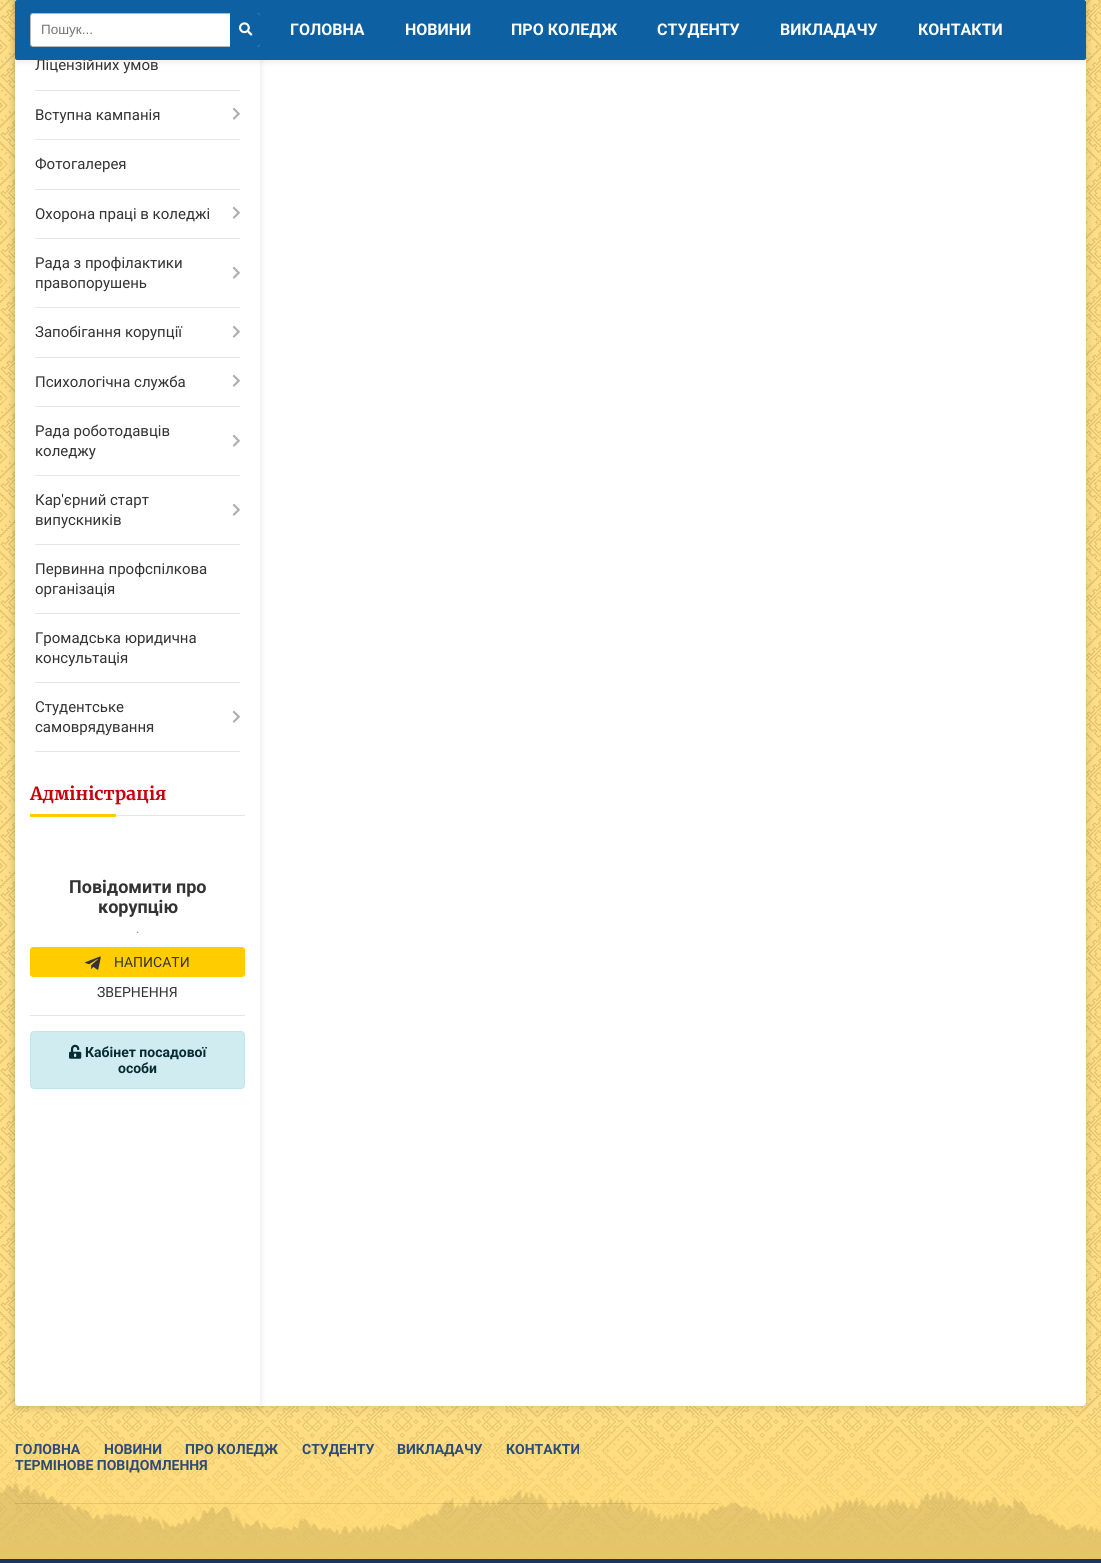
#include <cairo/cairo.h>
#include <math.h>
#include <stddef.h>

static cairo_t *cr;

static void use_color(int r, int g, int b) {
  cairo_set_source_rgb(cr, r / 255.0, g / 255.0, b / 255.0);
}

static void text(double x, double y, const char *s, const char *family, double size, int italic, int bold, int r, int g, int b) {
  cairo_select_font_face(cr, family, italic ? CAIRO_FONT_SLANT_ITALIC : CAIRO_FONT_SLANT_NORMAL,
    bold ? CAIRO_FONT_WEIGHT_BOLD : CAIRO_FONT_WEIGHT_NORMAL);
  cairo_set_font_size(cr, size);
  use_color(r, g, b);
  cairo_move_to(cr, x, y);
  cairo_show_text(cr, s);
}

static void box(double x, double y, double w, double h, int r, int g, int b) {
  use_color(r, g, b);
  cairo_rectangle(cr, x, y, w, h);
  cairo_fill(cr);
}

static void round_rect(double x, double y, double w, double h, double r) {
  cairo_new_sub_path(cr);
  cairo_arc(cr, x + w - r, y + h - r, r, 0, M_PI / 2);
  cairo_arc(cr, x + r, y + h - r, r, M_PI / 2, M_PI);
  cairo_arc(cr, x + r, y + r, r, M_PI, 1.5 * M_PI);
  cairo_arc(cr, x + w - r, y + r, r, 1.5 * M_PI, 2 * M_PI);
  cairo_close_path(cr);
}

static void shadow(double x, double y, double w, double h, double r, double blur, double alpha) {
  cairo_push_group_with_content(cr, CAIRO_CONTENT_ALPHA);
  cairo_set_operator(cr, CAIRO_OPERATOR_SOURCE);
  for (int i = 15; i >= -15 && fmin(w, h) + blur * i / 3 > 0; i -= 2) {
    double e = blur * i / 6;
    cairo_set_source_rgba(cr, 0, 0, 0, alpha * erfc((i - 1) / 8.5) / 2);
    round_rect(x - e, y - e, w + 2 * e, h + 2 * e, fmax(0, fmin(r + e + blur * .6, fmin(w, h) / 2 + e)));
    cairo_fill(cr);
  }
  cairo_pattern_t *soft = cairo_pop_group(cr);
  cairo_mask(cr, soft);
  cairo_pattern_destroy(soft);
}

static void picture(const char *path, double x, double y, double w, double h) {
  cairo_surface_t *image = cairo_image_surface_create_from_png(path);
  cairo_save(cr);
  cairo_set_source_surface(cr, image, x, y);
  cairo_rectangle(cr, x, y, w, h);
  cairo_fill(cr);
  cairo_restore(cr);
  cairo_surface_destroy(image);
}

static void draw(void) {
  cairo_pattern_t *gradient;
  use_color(255, 218, 117);
  cairo_paint(cr);
  picture("img_01.png", 0, 0, 1101, 1558);
  gradient = cairo_pattern_create_linear(551, 1391, 551, 1559);
  cairo_pattern_add_color_stop_rgba(gradient, 0, 1, 0.855, 0.459, 0);
  cairo_pattern_add_color_stop_rgba(gradient, 1, 1, 0.855, 0.459, 1);
  cairo_set_source(cr, gradient);
  cairo_pattern_destroy(gradient);
  cairo_rectangle(cr, 0, 1404, 1101, 154);
  cairo_fill(cr);
  use_color(0, 0, 0);
  shadow(15, -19, 1071, 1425, 4, 5, 0.15);
  use_color(255, 255, 255);
  round_rect(15, -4, 1071, 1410, 4);
  cairo_fill(cr);
  use_color(0, 0, 0);
  shadow(15, 1, 1071, 60, 2, 3.5, 0.1);
  cairo_save(cr);
  cairo_set_fill_rule(cr, CAIRO_FILL_RULE_EVEN_ODD);
  cairo_new_path(cr);
  cairo_move_to(cr, 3, 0);
  cairo_line_to(cr, 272, 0);
  cairo_line_to(cr, 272, 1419);
  cairo_line_to(cr, 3, 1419);
  cairo_close_path(cr);
  cairo_move_to(cr, 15, -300);
  cairo_line_to(cr, 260, -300);
  cairo_line_to(cr, 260, 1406);
  cairo_line_to(cr, 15, 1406);
  cairo_close_path(cr);
  cairo_clip(cr);
  shadow(15, -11, 245, 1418, 0, 3.5, 0.1);
  cairo_restore(cr);
  box(35, 90, 205, 1, 230, 230, 230);
  box(35, 139, 205, 1, 230, 230, 230);
  picture("img_02.png", 232, 107, 8, 13);
  box(35, 189, 205, 1, 230, 230, 230);
  box(35, 238, 205, 1, 230, 230, 230);
  picture("img_02.png", 232, 206, 8, 13);
  box(35, 307, 205, 1, 230, 230, 230);
  picture("img_02.png", 232, 266, 8, 13);
  box(35, 357, 205, 1, 230, 230, 230);
  picture("img_02.png", 232, 325, 8, 13);
  box(35, 406, 205, 1, 230, 230, 230);
  picture("img_02.png", 232, 374, 8, 13);
  box(35, 475, 205, 1, 230, 230, 230);
  picture("img_02.png", 232, 434, 8, 13);
  box(35, 544, 205, 1, 230, 230, 230);
  picture("img_02.png", 232, 503, 8, 13);
  box(35, 613, 205, 1, 230, 230, 230);
  box(35, 682, 205, 1, 230, 230, 230);
  box(35, 751, 205, 1, 230, 230, 230);
  picture("img_02.png", 232, 710, 8, 13);
  box(116, 815, 129, 1, 229, 229, 229);
  box(30, 814, 86, 3, 255, 204, 0);
  box(30, 1015, 215, 1, 229, 229, 229);
  use_color(255, 204, 0);
  round_rect(30, 947, 215, 30, 3);
  cairo_fill(cr);
  picture("img_03.png", 85, 956, 16, 14);
  use_color(209, 236, 241);
  round_rect(30.5, 1031.5, 214, 57, 3.5);
  cairo_fill_preserve(cr);
  use_color(190, 229, 235);
  cairo_set_line_width(cr, 1);
  cairo_stroke(cr);
  picture("img_04.png", 69, 1044, 13, 15);
  picture("img_06.png", 0, 1483, 1101, 76);
  cairo_set_source_rgba(cr, 0, 0, 0, 0.1);
  cairo_rectangle(cr, 15, 1503, 704, 1);
  cairo_fill(cr);
  box(0, 1559, 1101, 4, 28, 55, 91);
  text(35, 70, "Ліцензійних умов", "Roboto", 15, 0, 0, 51, 51, 51);
  use_color(13, 97, 162);
  round_rect(15, 0, 1071, 60, 2);
  cairo_fill(cr);
  text(918, 35, "КОНТАКТИ", "Roboto", 16, 0, 1, 255, 255, 255);
  text(780, 35, "ВИКЛАДАЧУ", "Roboto", 16, 0, 1, 255, 255, 255);
  text(657, 35, "СТУДЕНТУ", "Roboto", 16, 0, 1, 255, 255, 255);
  text(511, 35, "ПРО КОЛЕДЖ", "Roboto", 16, 0, 1, 255, 255, 255);
  text(405, 35, "НОВИНИ", "Roboto", 16, 0, 1, 255, 255, 255);
  text(290, 35, "ГОЛОВНА", "Roboto", 16, 0, 1, 255, 255, 255);
  text(35, 120, "Вступна кампанія", "Roboto", 15, 0, 0, 51, 51, 51);
  text(35, 169, "Фотогалерея", "Roboto", 15, 0, 0, 51, 51, 51);
  text(35, 219, "Охорона праці в коледжі", "Roboto", 15, 0, 0, 51, 51, 51);
  text(35, 268, "Рада з профілактики", "Roboto", 15, 0, 0, 51, 51, 51);
  text(35, 288, "правопорушень", "Roboto", 15, 0, 0, 51, 51, 51);
  text(35, 337, "Запобігання корупції", "Roboto", 15, 0, 0, 51, 51, 51);
  text(35, 387, "Психологічна служба", "Roboto", 15, 0, 0, 51, 51, 51);
  text(35, 436, "Рада роботодавців", "Roboto", 15, 0, 0, 51, 51, 51);
  text(35, 456, "коледжу", "Roboto", 15, 0, 0, 51, 51, 51);
  text(35, 505, "Кар'єрний старт", "Roboto", 15, 0, 0, 51, 51, 51);
  text(35, 525, "випускників", "Roboto", 15, 0, 0, 51, 51, 51);
  text(35, 574, "Первинна профспілкова", "Roboto", 15, 0, 0, 51, 51, 51);
  text(35, 594, "організація", "Roboto", 15, 0, 0, 51, 51, 51);
  text(35, 643, "Громадська юридична", "Roboto", 15, 0, 0, 51, 51, 51);
  text(35, 663, "консультація", "Roboto", 15, 0, 0, 51, 51, 51);
  text(35, 712, "Студентське", "Roboto", 15, 0, 0, 51, 51, 51);
  text(35, 732, "самоврядування", "Roboto", 15, 0, 0, 51, 51, 51);
  text(30, 800, "Адміністрація", "Merriweather Light", 18, 0, 0, 199, 0, 12);
  text(69, 893, "Повідомити про", "Roboto", 18, 0, 1, 51, 51, 51);
  text(98, 913, "корупцію", "Roboto", 18, 0, 1, 51, 51, 51);
  text(136, 933, ".", "Roboto", 13, 0, 0, 144, 144, 144);
  text(114, 967, "НАПИСАТИ", "Roboto", 14, 0, 0, 51, 51, 51);
  text(97, 997, "ЗВЕРНЕННЯ", "Roboto", 14, 0, 0, 51, 51, 51);
  text(85, 1057, "Кабінет посадової", "Roboto", 14, 0, 1, 6, 44, 51);
  text(118, 1073, "особи", "Roboto", 14, 0, 1, 6, 44, 51);
  use_color(255, 255, 255);
  round_rect(30.5, 13.5, 229, 33, 2.5);
  cairo_fill_preserve(cr);
  use_color(183, 183, 183);
  cairo_stroke(cr);
  text(41, 34, "Пошук...", "Liberation Sans", 13.5, 0, 0, 117, 117, 117);
  use_color(13, 97, 162);
  cairo_new_path(cr);
  cairo_move_to(cr, 230, 13);
  cairo_line_to(cr, 257, 13);
  cairo_curve_to(cr, 258.5, 13, 260, 14.5, 260, 16);
  cairo_line_to(cr, 260, 44);
  cairo_curve_to(cr, 260, 45.5, 258.5, 47, 257, 47);
  cairo_line_to(cr, 230, 47);
  cairo_close_path(cr);
  cairo_fill(cr);
  picture("img_05.png", 239, 22, 14, 14);
  text(15, 1454, "ГОЛОВНА", "Roboto", 14, 0, 1, 44, 76, 119);
  text(104, 1454, "НОВИНИ", "Roboto", 14, 0, 1, 44, 76, 119);
  text(185, 1454, "ПРО КОЛЕДЖ", "Roboto", 14, 0, 1, 44, 76, 119);
  text(302, 1454, "СТУДЕНТУ", "Roboto", 14, 0, 1, 44, 76, 119);
  text(397, 1454, "ВИКЛАДАЧУ", "Roboto", 14, 0, 1, 44, 76, 119);
  text(506, 1454, "КОНТАКТИ", "Roboto", 14, 0, 1, 44, 76, 119);
  text(15, 1470, "ТЕРМІНОВЕ ПОВІДОМЛЕННЯ", "Roboto", 14, 0, 1, 44, 76, 119);
}

int main(void) {
  cairo_surface_t *surface = cairo_image_surface_create(CAIRO_FORMAT_RGB24, 1101, 1563);
  cr = cairo_create(surface);
  cairo_font_options_t *options = cairo_font_options_create();
  cairo_font_options_set_hint_metrics(options, CAIRO_HINT_METRICS_OFF);
  cairo_font_options_set_hint_style(options, CAIRO_HINT_STYLE_NONE);
  cairo_set_font_options(cr, options);
  cairo_set_miter_limit(cr, 4);
  draw();
  cairo_surface_write_to_png(surface, "out.png");
  cairo_font_options_destroy(options);
  cairo_destroy(cr);
  cairo_surface_destroy(surface);
  return 0;
}
